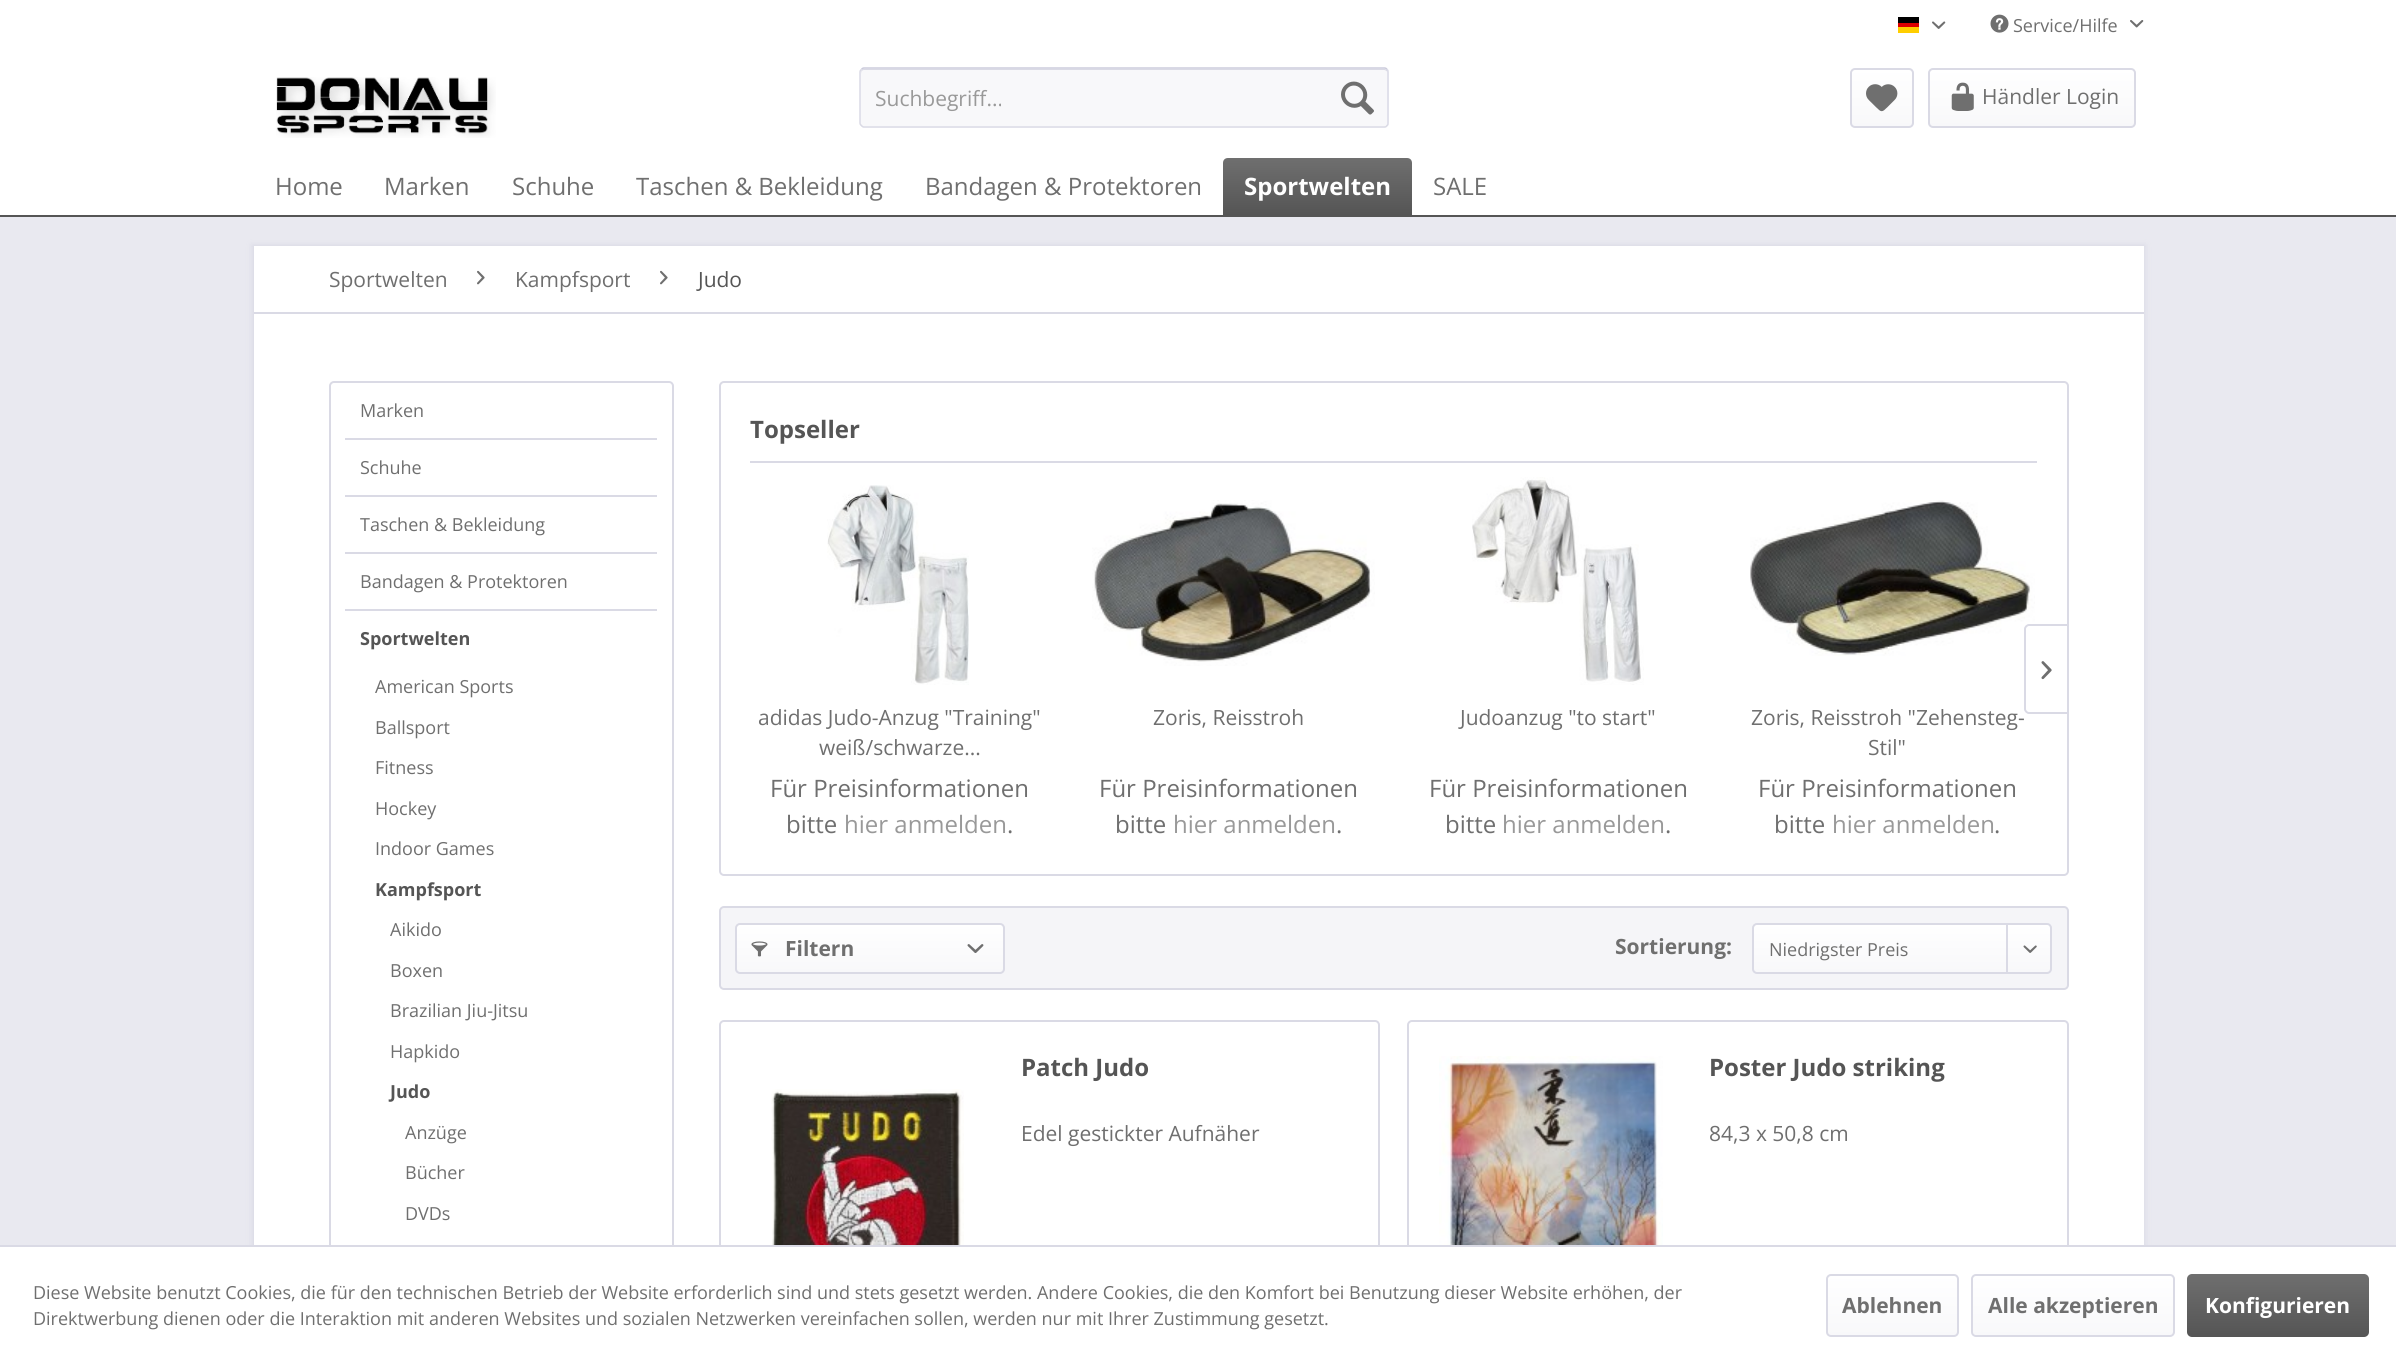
#include <cairo/cairo.h>
#include <math.h>
#include <stddef.h>

static cairo_t *cr;

static void use_color(int r, int g, int b) {
  cairo_set_source_rgb(cr, r / 255.0, g / 255.0, b / 255.0);
}

static void text(double x, double y, const char *s, const char *family, double size, int italic, int bold, int r, int g, int b) {
  cairo_select_font_face(cr, family, italic ? CAIRO_FONT_SLANT_ITALIC : CAIRO_FONT_SLANT_NORMAL,
    bold ? CAIRO_FONT_WEIGHT_BOLD : CAIRO_FONT_WEIGHT_NORMAL);
  cairo_set_font_size(cr, size);
  use_color(r, g, b);
  cairo_move_to(cr, x, y);
  cairo_show_text(cr, s);
}

static void box(double x, double y, double w, double h, int r, int g, int b) {
  use_color(r, g, b);
  cairo_rectangle(cr, x, y, w, h);
  cairo_fill(cr);
}

static void round_rect(double x, double y, double w, double h, double r) {
  cairo_new_sub_path(cr);
  cairo_arc(cr, x + w - r, y + h - r, r, 0, M_PI / 2);
  cairo_arc(cr, x + r, y + h - r, r, M_PI / 2, M_PI);
  cairo_arc(cr, x + r, y + r, r, M_PI, 1.5 * M_PI);
  cairo_arc(cr, x + w - r, y + r, r, 1.5 * M_PI, 2 * M_PI);
  cairo_close_path(cr);
}

static void shadow(double x, double y, double w, double h, double r, double blur, double alpha) {
  cairo_push_group_with_content(cr, CAIRO_CONTENT_ALPHA);
  cairo_set_operator(cr, CAIRO_OPERATOR_SOURCE);
  for (int i = 15; i >= -15 && fmin(w, h) + blur * i / 3 > 0; i -= 2) {
    double e = blur * i / 6;
    cairo_set_source_rgba(cr, 0, 0, 0, alpha * erfc((i - 1) / 8.5) / 2);
    round_rect(x - e, y - e, w + 2 * e, h + 2 * e, fmax(0, fmin(r + e + blur * .6, fmin(w, h) / 2 + e)));
    cairo_fill(cr);
  }
  cairo_pattern_t *soft = cairo_pop_group(cr);
  cairo_mask(cr, soft);
  cairo_pattern_destroy(soft);
}

static void picture(const char *path, double x, double y, double w, double h) {
  cairo_surface_t *image = cairo_image_surface_create_from_png(path);
  cairo_save(cr);
  cairo_set_source_surface(cr, image, x, y);
  cairo_rectangle(cr, x, y, w, h);
  cairo_fill(cr);
  cairo_restore(cr);
  cairo_surface_destroy(image);
}

static void draw(void) {
  cairo_pattern_t *gradient;
  use_color(233, 233, 240);
  cairo_paint(cr);
  box(0, 0, 2396, 215, 255, 255, 255);
  box(1898, 17, 21, 6, 0, 0, 0);
  box(1898, 23, 21, 4, 221, 0, 0);
  box(1898, 27, 21, 6, 255, 206, 0);
  picture("img_01.png", 1932, 21, 14, 8);
  picture("img_02.png", 1990, 14, 19, 19);
  picture("img_03.png", 2130, 20, 14, 8);
  picture("img_04.png", 276, 77, 220, 61);
  use_color(248, 248, 250);
  round_rect(860, 68, 529, 60, 5);
  cairo_fill(cr);
  use_color(218, 218, 229);
  cairo_new_path(cr);
  cairo_move_to(cr, 864, 70);
  cairo_line_to(cr, 1384, 70);
  cairo_curve_to(cr, 1386, 70, 1388, 72, 1388, 74);
  cairo_line_to(cr, 1387, 70);
  cairo_line_to(cr, 1385, 69);
  cairo_line_to(cr, 864, 69);
  cairo_curve_to(cr, 861, 69, 861, 72, 861, 74);
  cairo_curve_to(cr, 861, 72, 862, 70, 864, 70);
  cairo_close_path(cr);
  cairo_fill(cr);
  cairo_new_path(cr);
  cairo_move_to(cr, 861.5, 69.5);
  cairo_curve_to(cr, 862, 68.5, 863, 68, 864, 68);
  cairo_line_to(cr, 1384.5, 68);
  cairo_curve_to(cr, 1385.5, 68, 1386.5, 68.5, 1387, 69.5);
  use_color(203, 203, 219);
  cairo_set_line_width(cr, 1.5);
  cairo_stroke(cr);
  cairo_new_path(cr);
  cairo_move_to(cr, 1387, 69.5);
  cairo_curve_to(cr, 1388, 70, 1388, 71, 1388, 72);
  cairo_line_to(cr, 1388, 123);
  cairo_curve_to(cr, 1388, 124, 1388, 125, 1387, 125.5);
  cairo_curve_to(cr, 1386.5, 126.5, 1385.5, 127, 1384.5, 127);
  cairo_line_to(cr, 864, 127);
  cairo_curve_to(cr, 863, 127, 862, 126.5, 861.5, 125.5);
  cairo_curve_to(cr, 860.5, 125, 860, 124, 860, 123);
  cairo_line_to(cr, 860, 72);
  cairo_curve_to(cr, 860, 71, 860.5, 70, 861.5, 69.5);
  use_color(218, 218, 229);
  cairo_stroke(cr);
  picture("img_05.png", 1341, 81, 33, 34);
  gradient = cairo_pattern_create_linear(1882, 69, 1882, 126);
  cairo_pattern_add_color_stop_rgba(gradient, 0, 1, 1, 1, 1);
  cairo_pattern_add_color_stop_rgba(gradient, 1, 0.973, 0.973, 0.98, 1);
  cairo_set_source(cr, gradient);
  cairo_pattern_destroy(gradient);
  round_rect(1851, 69, 62, 57, 3);
  cairo_fill(cr);
  round_rect(1851, 69, 62, 58, 4);
  use_color(218, 218, 229);
  cairo_set_line_width(cr, 2);
  cairo_stroke(cr);
  picture("img_06.png", 1866, 84, 32, 28);
  gradient = cairo_pattern_create_linear(2032, 69, 2032, 126);
  cairo_pattern_add_color_stop_rgba(gradient, 0, 1, 1, 1, 1);
  cairo_pattern_add_color_stop_rgba(gradient, 1, 0.973, 0.973, 0.98, 1);
  cairo_set_source(cr, gradient);
  cairo_pattern_destroy(gradient);
  round_rect(1929, 69, 206, 57, 3);
  cairo_fill(cr);
  round_rect(1929, 69, 206, 58, 4);
  use_color(218, 218, 229);
  cairo_stroke(cr);
  picture("img_07.png", 1951, 82, 23, 29);
  box(0, 215, 2396, 2, 85, 85, 85);
  gradient = cairo_pattern_create_linear(1317, 158, 1317, 215);
  cairo_pattern_add_color_stop_rgba(gradient, 0, 0.435, 0.435, 0.435, 1);
  cairo_pattern_add_color_stop_rgba(gradient, 1, 0.333, 0.333, 0.333, 1);
  cairo_set_source(cr, gradient);
  cairo_pattern_destroy(gradient);
  cairo_new_path(cr);
  cairo_move_to(cr, 1228, 158);
  cairo_line_to(cr, 1407, 158);
  cairo_curve_to(cr, 1410, 158, 1412, 160, 1412, 163);
  cairo_line_to(cr, 1412, 215);
  cairo_line_to(cr, 1223, 215);
  cairo_line_to(cr, 1223, 163);
  cairo_curve_to(cr, 1223, 160, 1225, 158, 1228, 158);
  cairo_close_path(cr);
  cairo_fill(cr);
  use_color(218, 218, 229);
  shadow(252, 245, 1893, 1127, 0, 3, 1);
  box(254, 246, 1890, 999, 255, 255, 255);
  box(254, 312, 1890, 2, 218, 218, 229);
  picture("img_08.png", 477, 270, 8, 15);
  picture("img_08.png", 660, 270, 8, 15);
  round_rect(330, 382, 343, 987, 4);
  cairo_stroke(cr);
  box(345, 438, 312, 2, 218, 218, 229);
  box(345, 495, 312, 2, 218, 218, 229);
  box(345, 552, 312, 2, 218, 218, 229);
  box(345, 609, 312, 2, 218, 218, 229);
  round_rect(720, 382, 1348, 493, 4);
  cairo_stroke(cr);
  box(750, 461, 1287, 2, 218, 218, 229);
  picture("img_13.png", 1750, 500, 285, 156);
  cairo_new_path(cr);
  cairo_move_to(cr, 2029, 625);
  cairo_line_to(cr, 2068, 625);
  cairo_line_to(cr, 2068, 713);
  cairo_line_to(cr, 2029, 713);
  cairo_curve_to(cr, 2027, 713, 2025, 711, 2025, 709);
  cairo_line_to(cr, 2025, 629);
  cairo_curve_to(cr, 2025, 627, 2027, 625, 2029, 625);
  cairo_close_path(cr);
  cairo_stroke(cr);
  picture("img_09.png", 2041, 661, 11, 19);
  picture("img_10.png", 827, 485, 142, 200);
  picture("img_11.png", 1092, 500, 283, 166);
  picture("img_12.png", 1472, 477, 172, 208);
  use_color(245, 245, 248);
  round_rect(720, 907, 1348, 82, 4);
  cairo_fill_preserve(cr);
  use_color(218, 218, 229);
  cairo_stroke(cr);
  gradient = cairo_pattern_create_linear(870, 924, 870, 972);
  cairo_pattern_add_color_stop_rgba(gradient, 0, 1, 1, 1, 1);
  cairo_pattern_add_color_stop_rgba(gradient, 1, 0.973, 0.973, 0.98, 1);
  cairo_set_source(cr, gradient);
  cairo_pattern_destroy(gradient);
  round_rect(737, 924, 267, 48, 3);
  cairo_fill(cr);
  round_rect(736, 924, 268, 49, 4);
  use_color(218, 218, 229);
  cairo_stroke(cr);
  picture("img_14.png", 751, 941, 17, 16);
  picture("img_15.png", 967, 944, 17, 9);
  gradient = cairo_pattern_create_linear(1902, 924, 1902, 972);
  cairo_pattern_add_color_stop_rgba(gradient, 0, 1, 1, 1, 1);
  cairo_pattern_add_color_stop_rgba(gradient, 1, 0.973, 0.973, 0.98, 1);
  cairo_set_source(cr, gradient);
  cairo_pattern_destroy(gradient);
  round_rect(1754, 924, 297, 48, 3);
  cairo_fill(cr);
  round_rect(1753, 924, 298, 49, 4);
  use_color(218, 218, 229);
  cairo_stroke(cr);
  box(2006, 924, 2, 50, 218, 218, 229);
  picture("img_16.png", 2023, 945, 14, 8);
  round_rect(720, 1021, 659, 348, 4);
  cairo_stroke(cr);
  picture("img_17.png", 771, 1089, 193, 156);
  round_rect(1408, 1021, 660, 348, 4);
  cairo_stroke(cr);
  picture("img_18.png", 1439, 1056, 224, 189);
  box(0, 1247, 2396, 116, 255, 255, 255);
  box(0, 1245, 2396, 2, 218, 218, 229);
  gradient = cairo_pattern_create_linear(1892, 1275, 1892, 1335);
  cairo_pattern_add_color_stop_rgba(gradient, 0, 1, 1, 1, 1);
  cairo_pattern_add_color_stop_rgba(gradient, 1, 0.973, 0.973, 0.98, 1);
  cairo_set_source(cr, gradient);
  cairo_pattern_destroy(gradient);
  round_rect(1827, 1275, 131, 60, 3);
  cairo_fill(cr);
  round_rect(1827, 1275, 131, 61, 4);
  use_color(218, 218, 229);
  cairo_stroke(cr);
  gradient = cairo_pattern_create_linear(2073, 1275, 2073, 1335);
  cairo_pattern_add_color_stop_rgba(gradient, 0, 1, 1, 1, 1);
  cairo_pattern_add_color_stop_rgba(gradient, 1, 0.973, 0.973, 0.98, 1);
  cairo_set_source(cr, gradient);
  cairo_pattern_destroy(gradient);
  round_rect(1973, 1275, 201, 60, 3);
  cairo_fill(cr);
  round_rect(1972, 1275, 202, 61, 4);
  use_color(218, 218, 229);
  cairo_stroke(cr);
  gradient = cairo_pattern_create_linear(2278, 1274, 2278, 1337);
  cairo_pattern_add_color_stop_rgba(gradient, 0, 0.435, 0.435, 0.435, 1);
  cairo_pattern_add_color_stop_rgba(gradient, 1, 0.333, 0.333, 0.333, 1);
  cairo_set_source(cr, gradient);
  cairo_pattern_destroy(gradient);
  round_rect(2187, 1274, 182, 63, 5);
  cairo_fill(cr);
  text(2013, 32, "Service/Hilfe", "Open Sans", 18, 0, 0, 111, 111, 111);
  text(875, 106, "Suchbegriff...", "Open Sans", 21, 0, 0, 153, 153, 153);
  text(1982, 104, "Händler Login", "Open Sans", 21, 0, 0, 111, 111, 111);
  text(275, 195, "Home", "Open Sans", 24, 0, 0, 111, 111, 111);
  text(384, 195, "Marken", "Open Sans", 24, 0, 0, 111, 111, 111);
  text(512, 195, "Schuhe", "Open Sans", 24, 0, 0, 111, 111, 111);
  text(636, 195, "Taschen & Bekleidung", "Open Sans", 24, 0, 0, 111, 111, 111);
  text(925, 195, "Bandagen & Protektoren", "Open Sans", 24, 0, 0, 111, 111, 111);
  text(1244, 195, "Sportwelten", "Open Sans", 24, 0, 1, 255, 255, 255);
  text(1433, 195, "SALE", "Open Sans", 24, 0, 0, 111, 111, 111);
  text(329, 287, "Sportwelten", "Open Sans", 21, 0, 0, 111, 111, 111);
  text(515, 287, "Kampfsport", "Open Sans", 21, 0, 0, 111, 111, 111);
  text(698, 287, "Judo", "Open Sans", 21, 0, 0, 85, 85, 85);
  text(360, 417, "Marken", "Open Sans", 18, 0, 0, 111, 111, 111);
  text(360, 474, "Schuhe", "Open Sans", 18, 0, 0, 111, 111, 111);
  text(360, 531, "Taschen & Bekleidung", "Open Sans", 18, 0, 0, 111, 111, 111);
  text(360, 588, "Bandagen & Protektoren", "Open Sans", 18, 0, 0, 111, 111, 111);
  text(360, 645, "Sportwelten", "Open Sans", 18, 0, 1, 85, 85, 85);
  text(375, 693, "American Sports", "Open Sans", 18, 0, 0, 111, 111, 111);
  text(375, 734, "Ballsport", "Open Sans", 18, 0, 0, 111, 111, 111);
  text(375, 774, "Fitness", "Open Sans", 18, 0, 0, 111, 111, 111);
  text(375, 815, "Hockey", "Open Sans", 18, 0, 0, 111, 111, 111);
  text(375, 855, "Indoor Games", "Open Sans", 18, 0, 0, 111, 111, 111);
  text(375, 896, "Kampfsport", "Open Sans", 18, 0, 1, 85, 85, 85);
  text(390, 936, "Aikido", "Open Sans", 18, 0, 0, 111, 111, 111);
  text(390, 977, "Boxen", "Open Sans", 18, 0, 0, 111, 111, 111);
  text(390, 1017, "Brazilian Jiu-Jitsu", "Open Sans", 18, 0, 0, 111, 111, 111);
  text(390, 1058, "Hapkido", "Open Sans", 18, 0, 0, 111, 111, 111);
  text(390, 1098, "Judo", "Open Sans", 18, 0, 1, 85, 85, 85);
  text(405, 1139, "Anzüge", "Open Sans", 18, 0, 0, 111, 111, 111);
  text(405, 1179, "Bücher", "Open Sans", 18, 0, 0, 111, 111, 111);
  text(405, 1220, "DVDs", "Open Sans", 18, 0, 0, 111, 111, 111);
  text(750, 438, "Topseller", "Open Sans", 24, 0, 1, 85, 85, 85);
  text(758, 725, "adidas Judo-Anzug \"Training\"", "Open Sans", 21, 0, 0, 111, 111, 111);
  text(819, 755, "weiß/schwarze...", "Open Sans", 21, 0, 0, 111, 111, 111);
  text(770, 797, "Für Preisinformationen", "Open Sans", 24, 0, 0, 111, 111, 111);
  text(786, 833, "bitte", "Open Sans", 24, 0, 0, 111, 111, 111);
  text(844, 833, "hier anmelden", "Open Sans", 24, 0, 0, 153, 153, 153);
  text(1007, 833, ".", "Open Sans", 24, 0, 0, 111, 111, 111);
  text(1153, 725, "Zoris, Reisstroh", "Open Sans", 21, 0, 0, 111, 111, 111);
  text(1099, 797, "Für Preisinformationen", "Open Sans", 24, 0, 0, 111, 111, 111);
  text(1115, 833, "bitte", "Open Sans", 24, 0, 0, 111, 111, 111);
  text(1173, 833, "hier anmelden", "Open Sans", 24, 0, 0, 153, 153, 153);
  text(1336, 833, ".", "Open Sans", 24, 0, 0, 111, 111, 111);
  text(1460, 725, "Judoanzug \"to start\"", "Open Sans", 21, 0, 0, 111, 111, 111);
  text(1429, 797, "Für Preisinformationen", "Open Sans", 24, 0, 0, 111, 111, 111);
  text(1445, 833, "bitte", "Open Sans", 24, 0, 0, 111, 111, 111);
  text(1502, 833, "hier anmelden", "Open Sans", 24, 0, 0, 153, 153, 153);
  text(1665, 833, ".", "Open Sans", 24, 0, 0, 111, 111, 111);
  text(1751, 725, "Zoris, Reisstroh \"Zehensteg-", "Open Sans", 21, 0, 0, 111, 111, 111);
  text(1868, 755, "Stil\"", "Open Sans", 21, 0, 0, 111, 111, 111);
  text(1758, 797, "Für Preisinformationen", "Open Sans", 24, 0, 0, 111, 111, 111);
  text(1774, 833, "bitte", "Open Sans", 24, 0, 0, 111, 111, 111);
  text(1832, 833, "hier anmelden", "Open Sans", 24, 0, 0, 153, 153, 153);
  text(1994, 833, ".", "Open Sans", 24, 0, 0, 111, 111, 111);
  text(785, 956, "Filtern", "Open Sans", 21, 0, 1, 111, 111, 111);
  text(1615, 954, "Sortierung:", "Open Sans", 21, 0, 1, 111, 111, 111);
  text(1769, 956, "Niedrigster Preis", "Open Sans", 18, 0, 0, 111, 111, 111);
  text(1021, 1076, "Patch Judo", "Open Sans", 24, 0, 1, 85, 85, 85);
  text(1021, 1141, "Edel gestickter Aufnäher", "Open Sans", 21, 0, 0, 111, 111, 111);
  text(1709, 1076, "Poster Judo striking", "Open Sans", 24, 0, 1, 85, 85, 85);
  text(1709, 1141, "84,3 x 50,8 cm", "Open Sans", 21, 0, 0, 111, 111, 111);
  text(33, 1299, "Diese Website benutzt Cookies, die für den technischen Betrieb der Website erforderlich sind und stets gesetzt werden. Andere Cookies, die den Komfort bei Benutzung dieser Website erhöhen, der", "Open Sans", 18, 0, 0, 111, 111, 111);
  text(33, 1325, "Direktwerbung dienen oder die Interaktion mit anderen Websites und sozialen Netzwerken vereinfachen sollen, werden nur mit Ihrer Zustimmung gesetzt.", "Open Sans", 18, 0, 0, 111, 111, 111);
  text(1842, 1313, "Ablehnen", "Open Sans", 21, 0, 1, 111, 111, 111);
  text(1988, 1313, "Alle akzeptieren", "Open Sans", 21, 0, 1, 111, 111, 111);
  text(2205, 1313, "Konfigurieren", "Open Sans", 21, 0, 1, 255, 255, 255);
}

int main(void) {
  cairo_surface_t *surface = cairo_image_surface_create(CAIRO_FORMAT_RGB24, 2396, 1363);
  cr = cairo_create(surface);
  cairo_font_options_t *options = cairo_font_options_create();
  cairo_font_options_set_hint_metrics(options, CAIRO_HINT_METRICS_OFF);
  cairo_font_options_set_hint_style(options, CAIRO_HINT_STYLE_NONE);
  cairo_set_font_options(cr, options);
  cairo_set_miter_limit(cr, 4);
  draw();
  cairo_surface_write_to_png(surface, "out.png");
  cairo_font_options_destroy(options);
  cairo_destroy(cr);
  cairo_surface_destroy(surface);
  return 0;
}
